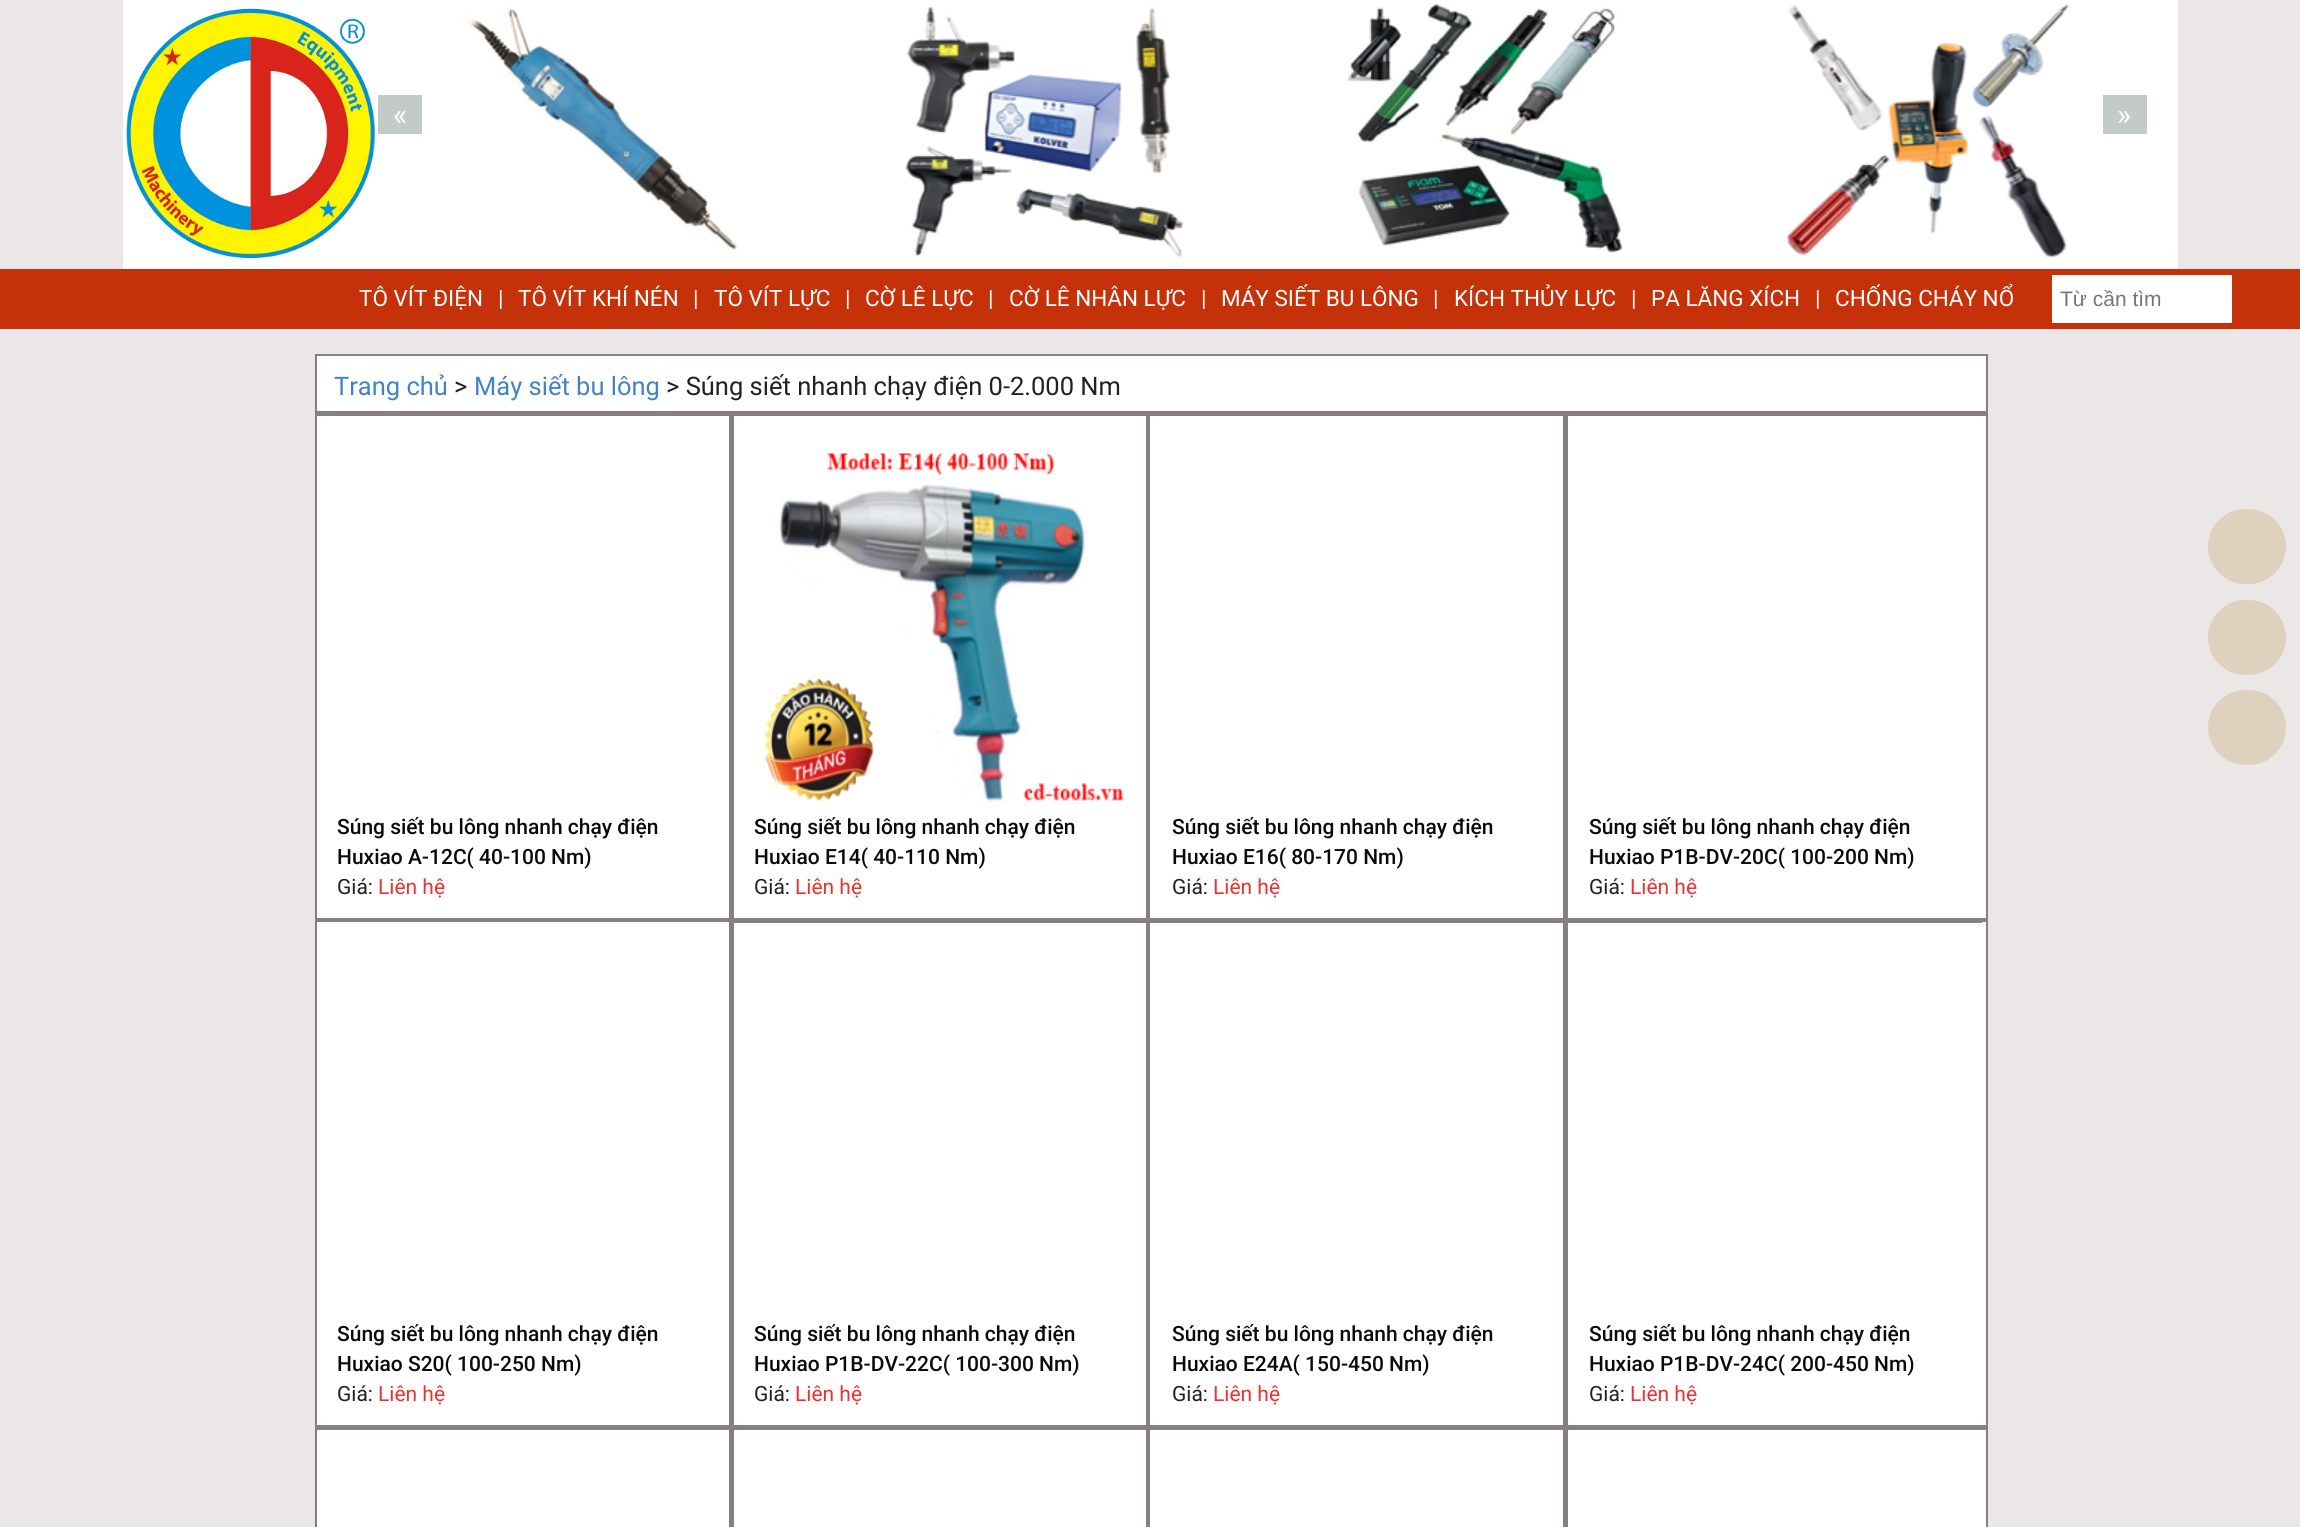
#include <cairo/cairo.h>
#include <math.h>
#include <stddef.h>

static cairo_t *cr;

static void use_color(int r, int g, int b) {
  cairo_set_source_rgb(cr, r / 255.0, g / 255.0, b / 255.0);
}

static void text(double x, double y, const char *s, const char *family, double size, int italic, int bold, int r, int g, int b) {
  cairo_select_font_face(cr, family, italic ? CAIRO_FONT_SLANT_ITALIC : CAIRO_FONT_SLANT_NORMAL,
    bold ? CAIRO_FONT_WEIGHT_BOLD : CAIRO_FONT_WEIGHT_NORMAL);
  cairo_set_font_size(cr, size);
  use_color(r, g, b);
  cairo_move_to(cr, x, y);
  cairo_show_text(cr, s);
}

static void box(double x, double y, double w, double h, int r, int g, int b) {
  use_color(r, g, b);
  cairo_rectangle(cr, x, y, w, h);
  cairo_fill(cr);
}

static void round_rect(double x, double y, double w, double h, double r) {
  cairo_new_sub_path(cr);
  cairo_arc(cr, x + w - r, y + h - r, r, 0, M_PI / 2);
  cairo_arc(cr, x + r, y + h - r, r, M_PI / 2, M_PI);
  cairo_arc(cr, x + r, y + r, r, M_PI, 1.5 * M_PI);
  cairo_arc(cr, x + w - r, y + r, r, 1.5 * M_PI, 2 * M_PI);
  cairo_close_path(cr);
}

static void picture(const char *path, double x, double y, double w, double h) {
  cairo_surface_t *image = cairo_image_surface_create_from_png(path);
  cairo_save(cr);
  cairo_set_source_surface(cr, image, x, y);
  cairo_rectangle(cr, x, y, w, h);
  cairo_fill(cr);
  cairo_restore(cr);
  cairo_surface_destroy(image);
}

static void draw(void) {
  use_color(235, 231, 231);
  cairo_paint(cr);
  box(123, 0, 2055, 269, 255, 255, 255);
  picture("img_01.png", 126, 8, 249, 251);
  picture("img_02.png", 463, 8, 274, 242);
  picture("img_03.png", 905, 7, 279, 250);
  picture("img_04.png", 1348, 4, 275, 249);
  picture("img_05.png", 1786, 4, 284, 254);
  box(378, 95, 44, 39, 195, 203, 200);
  box(2103, 95, 44, 39, 195, 203, 200);
  box(0, 269, 2300, 60, 197, 50, 10);
  box(2052, 275, 180, 48, 255, 255, 255);
  cairo_rectangle(cr, 316, 355, 1671, 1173);
  use_color(136, 128, 128);
  cairo_stroke(cr);
  box(317, 356, 1669, 1171, 255, 255, 255);
  box(317, 411, 1669, 5, 136, 128, 128);
  cairo_new_path(cr);
  cairo_move_to(cr, 729, 416);
  cairo_line_to(cr, 729, 923);
  cairo_line_to(cr, 1146, 923);
  cairo_line_to(cr, 1146, 922);
  cairo_line_to(cr, 734, 922);
  cairo_line_to(cr, 734, 416);
  cairo_close_path(cr);
  cairo_fill(cr);
  picture("img_06.png", 764, 453, 361, 351);
  cairo_new_path(cr);
  cairo_move_to(cr, 1146, 416);
  cairo_line_to(cr, 1146, 923);
  cairo_line_to(cr, 1563, 923);
  cairo_line_to(cr, 1563, 922);
  cairo_line_to(cr, 1150, 922);
  cairo_line_to(cr, 1150, 416);
  cairo_close_path(cr);
  cairo_fill(cr);
  cairo_new_path(cr);
  cairo_move_to(cr, 1563, 416);
  cairo_line_to(cr, 1563, 923);
  cairo_line_to(cr, 1982, 923);
  cairo_line_to(cr, 1982, 922);
  cairo_line_to(cr, 1568, 922);
  cairo_line_to(cr, 1568, 416);
  cairo_close_path(cr);
  cairo_fill(cr);
  box(317, 918, 1669, 4, 136, 128, 128);
  cairo_new_path(cr);
  cairo_move_to(cr, 729, 923);
  cairo_line_to(cr, 729, 1430);
  cairo_line_to(cr, 1146, 1430);
  cairo_line_to(cr, 734, 1430);
  cairo_line_to(cr, 734, 923);
  cairo_close_path(cr);
  cairo_fill(cr);
  cairo_new_path(cr);
  cairo_move_to(cr, 1146, 923);
  cairo_line_to(cr, 1146, 1430);
  cairo_line_to(cr, 1563, 1430);
  cairo_line_to(cr, 1150, 1430);
  cairo_line_to(cr, 1150, 923);
  cairo_close_path(cr);
  cairo_fill(cr);
  cairo_new_path(cr);
  cairo_move_to(cr, 1563, 923);
  cairo_line_to(cr, 1563, 1430);
  cairo_line_to(cr, 1982, 1430);
  cairo_line_to(cr, 1568, 1430);
  cairo_line_to(cr, 1568, 923);
  cairo_close_path(cr);
  cairo_fill(cr);
  box(317, 1425, 1669, 5, 136, 128, 128);
  cairo_new_path(cr);
  cairo_move_to(cr, 729, 1430);
  cairo_line_to(cr, 729, 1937);
  cairo_line_to(cr, 1146, 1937);
  cairo_line_to(cr, 1146, 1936);
  cairo_line_to(cr, 734, 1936);
  cairo_line_to(cr, 734, 1430);
  cairo_close_path(cr);
  cairo_fill(cr);
  cairo_new_path(cr);
  cairo_move_to(cr, 1146, 1430);
  cairo_line_to(cr, 1146, 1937);
  cairo_line_to(cr, 1563, 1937);
  cairo_line_to(cr, 1563, 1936);
  cairo_line_to(cr, 1150, 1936);
  cairo_line_to(cr, 1150, 1430);
  cairo_close_path(cr);
  cairo_fill(cr);
  cairo_new_path(cr);
  cairo_move_to(cr, 1563, 1430);
  cairo_line_to(cr, 1563, 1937);
  cairo_line_to(cr, 1982, 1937);
  cairo_line_to(cr, 1982, 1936);
  cairo_line_to(cr, 1568, 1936);
  cairo_line_to(cr, 1568, 1430);
  cairo_close_path(cr);
  cairo_fill(cr);
  use_color(222, 209, 189);
  round_rect(2208, 509, 78, 75, 37.5);
  cairo_fill(cr);
  round_rect(2208, 600, 78, 75, 37.5);
  cairo_fill(cr);
  round_rect(2208, 690, 78, 75, 37.5);
  cairo_fill(cr);
  text(393, 125, "«", "Roboto", 30, 0, 0, 255, 255, 255);
  text(2117, 125, "»", "Roboto", 30, 0, 0, 255, 255, 255);
  text(359, 306, "TÔ VÍT ĐIỆN", "Roboto", 22.5, 0, 0, 255, 255, 255);
  text(498, 306, "|", "Roboto", 22.5, 0, 0, 255, 255, 255);
  text(518, 306, "TÔ VÍT KHÍ NÉN", "Roboto", 22.5, 0, 0, 255, 255, 255);
  text(693, 306, "|", "Roboto", 22.5, 0, 0, 255, 255, 255);
  text(714, 306, "TÔ VÍT LỰC", "Roboto", 22.5, 0, 0, 255, 255, 255);
  text(845, 306, "|", "Roboto", 22.5, 0, 0, 255, 255, 255);
  text(865, 306, "CỜ LÊ LỰC", "Roboto", 22.5, 0, 0, 255, 255, 255);
  text(988, 306, "|", "Roboto", 22.5, 0, 0, 255, 255, 255);
  text(1009, 306, "CỜ LÊ NHÂN LỰC", "Roboto", 22.5, 0, 0, 255, 255, 255);
  text(1201, 306, "|", "Roboto", 22.5, 0, 0, 255, 255, 255);
  text(1221, 306, "MÁY SIẾT BU LÔNG", "Roboto", 22.5, 0, 0, 255, 255, 255);
  text(1433, 306, "|", "Roboto", 22.5, 0, 0, 255, 255, 255);
  text(1454, 306, "KÍCH THỦY LỰC", "Roboto", 22.5, 0, 0, 255, 255, 255);
  text(1631, 306, "|", "Roboto", 22.5, 0, 0, 255, 255, 255);
  text(1651, 306, "PA LĂNG XÍCH", "Roboto", 22.5, 0, 0, 255, 255, 255);
  text(1815, 306, "|", "Roboto", 22.5, 0, 0, 255, 255, 255);
  text(1835, 306, "CHỐNG CHÁY NỔ", "Roboto", 22.5, 0, 0, 255, 255, 255);
  text(2060, 306, "Từ cần tìm", "Liberation Sans", 21, 0, 0, 117, 117, 117);
  text(334, 395, "Trang chủ", "Roboto", 25.5, 0, 0, 65, 131, 196);
  text(454, 395, ">", "Roboto", 25.5, 0, 0, 33, 33, 33);
  text(474, 395, "Máy siết bu lông", "Roboto", 25.5, 0, 0, 65, 131, 196);
  text(666, 395, "> Súng siết nhanh chạy điện 0-2.000 Nm", "Roboto", 25.5, 0, 0, 33, 33, 33);
  text(337, 834, "Súng siết bu lông nhanh chạy điện", "Roboto Medium", 21, 0, 0, 10, 10, 10);
  text(337, 864, "Huxiao A-12C( 40-100 Nm)", "Roboto Medium", 21, 0, 0, 10, 10, 10);
  text(337, 894, "Giá:", "Roboto", 21, 0, 0, 33, 33, 33);
  text(378, 894, "Liên hệ", "Roboto", 21, 0, 0, 237, 49, 49);
  text(754, 834, "Súng siết bu lông nhanh chạy điện", "Roboto Medium", 21, 0, 0, 10, 10, 10);
  text(754, 864, "Huxiao E14( 40-110 Nm)", "Roboto Medium", 21, 0, 0, 10, 10, 10);
  text(754, 894, "Giá:", "Roboto", 21, 0, 0, 33, 33, 33);
  text(795, 894, "Liên hệ", "Roboto", 21, 0, 0, 237, 49, 49);
  text(1172, 834, "Súng siết bu lông nhanh chạy điện", "Roboto Medium", 21, 0, 0, 10, 10, 10);
  text(1172, 864, "Huxiao E16( 80-170 Nm)", "Roboto Medium", 21, 0, 0, 10, 10, 10);
  text(1172, 894, "Giá:", "Roboto", 21, 0, 0, 33, 33, 33);
  text(1213, 894, "Liên hệ", "Roboto", 21, 0, 0, 237, 49, 49);
  text(1589, 834, "Súng siết bu lông nhanh chạy điện", "Roboto Medium", 21, 0, 0, 10, 10, 10);
  text(1589, 864, "Huxiao P1B-DV-20C( 100-200 Nm)", "Roboto Medium", 21, 0, 0, 10, 10, 10);
  text(1589, 894, "Giá:", "Roboto", 21, 0, 0, 33, 33, 33);
  text(1630, 894, "Liên hệ", "Roboto", 21, 0, 0, 237, 49, 49);
  text(337, 1341, "Súng siết bu lông nhanh chạy điện", "Roboto Medium", 21, 0, 0, 10, 10, 10);
  text(337, 1371, "Huxiao S20( 100-250 Nm)", "Roboto Medium", 21, 0, 0, 10, 10, 10);
  text(337, 1401, "Giá:", "Roboto", 21, 0, 0, 33, 33, 33);
  text(378, 1401, "Liên hệ", "Roboto", 21, 0, 0, 237, 49, 49);
  text(754, 1341, "Súng siết bu lông nhanh chạy điện", "Roboto Medium", 21, 0, 0, 10, 10, 10);
  text(754, 1371, "Huxiao P1B-DV-22C( 100-300 Nm)", "Roboto Medium", 21, 0, 0, 10, 10, 10);
  text(754, 1401, "Giá:", "Roboto", 21, 0, 0, 33, 33, 33);
  text(795, 1401, "Liên hệ", "Roboto", 21, 0, 0, 237, 49, 49);
  text(1172, 1341, "Súng siết bu lông nhanh chạy điện", "Roboto Medium", 21, 0, 0, 10, 10, 10);
  text(1172, 1371, "Huxiao E24A( 150-450 Nm)", "Roboto Medium", 21, 0, 0, 10, 10, 10);
  text(1172, 1401, "Giá:", "Roboto", 21, 0, 0, 33, 33, 33);
  text(1213, 1401, "Liên hệ", "Roboto", 21, 0, 0, 237, 49, 49);
  text(1589, 1341, "Súng siết bu lông nhanh chạy điện", "Roboto Medium", 21, 0, 0, 10, 10, 10);
  text(1589, 1371, "Huxiao P1B-DV-24C( 200-450 Nm)", "Roboto Medium", 21, 0, 0, 10, 10, 10);
  text(1589, 1401, "Giá:", "Roboto", 21, 0, 0, 33, 33, 33);
  text(1630, 1401, "Liên hệ", "Roboto", 21, 0, 0, 237, 49, 49);
}

int main(void) {
  cairo_surface_t *surface = cairo_image_surface_create(CAIRO_FORMAT_RGB24, 2300, 1527);
  cr = cairo_create(surface);
  cairo_font_options_t *options = cairo_font_options_create();
  cairo_font_options_set_hint_metrics(options, CAIRO_HINT_METRICS_OFF);
  cairo_font_options_set_hint_style(options, CAIRO_HINT_STYLE_NONE);
  cairo_set_font_options(cr, options);
  cairo_set_miter_limit(cr, 4);
  draw();
  cairo_surface_write_to_png(surface, "out.png");
  cairo_font_options_destroy(options);
  cairo_destroy(cr);
  cairo_surface_destroy(surface);
  return 0;
}
